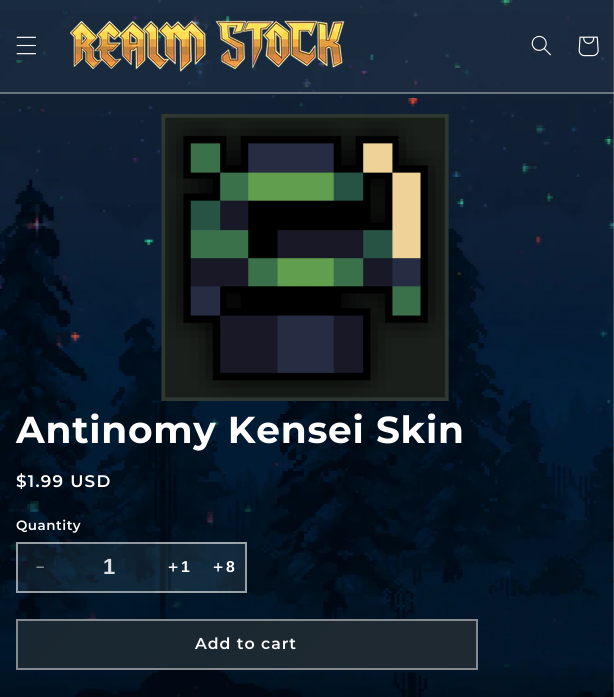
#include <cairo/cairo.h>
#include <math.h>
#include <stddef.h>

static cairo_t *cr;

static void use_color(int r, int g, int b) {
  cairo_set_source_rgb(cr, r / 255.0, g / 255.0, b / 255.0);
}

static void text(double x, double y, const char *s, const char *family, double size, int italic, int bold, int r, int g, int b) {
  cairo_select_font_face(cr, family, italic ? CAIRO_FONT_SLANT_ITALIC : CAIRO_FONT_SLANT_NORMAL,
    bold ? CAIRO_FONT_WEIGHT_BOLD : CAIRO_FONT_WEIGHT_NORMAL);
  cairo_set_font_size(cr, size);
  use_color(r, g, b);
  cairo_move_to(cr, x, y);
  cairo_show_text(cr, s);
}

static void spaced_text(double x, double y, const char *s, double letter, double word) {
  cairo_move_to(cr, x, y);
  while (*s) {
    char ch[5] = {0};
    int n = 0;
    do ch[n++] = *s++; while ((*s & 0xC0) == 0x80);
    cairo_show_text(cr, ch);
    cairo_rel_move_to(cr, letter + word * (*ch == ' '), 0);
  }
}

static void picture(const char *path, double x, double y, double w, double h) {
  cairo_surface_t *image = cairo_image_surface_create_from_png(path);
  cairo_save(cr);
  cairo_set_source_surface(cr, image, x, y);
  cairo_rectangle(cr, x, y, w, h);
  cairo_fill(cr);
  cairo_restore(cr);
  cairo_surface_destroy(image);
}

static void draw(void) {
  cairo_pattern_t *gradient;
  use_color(255, 255, 255);
  cairo_paint(cr);
  picture("img_01.png", 0, 0, 614, 697);
  gradient = cairo_pattern_create_linear(130, -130, 484, 223);
  cairo_pattern_add_color_stop_rgba(gradient, 0, 0.553, 0.886, 1, 0.05);
  cairo_pattern_add_color_stop_rgba(gradient, 0.69, 0.765, 0.976, 1, 0.05);
  cairo_set_source(cr, gradient);
  cairo_pattern_destroy(gradient);
  cairo_rectangle(cr, 0, 0, 614, 92);
  cairo_fill(cr);
  gradient = cairo_pattern_create_linear(130, -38, 484, 315);
  cairo_pattern_add_color_stop_rgba(gradient, 0, 0.553, 0.886, 1, 0.05);
  cairo_pattern_add_color_stop_rgba(gradient, 0.69, 0.765, 0.976, 1, 0.05);
  cairo_set_source(cr, gradient);
  cairo_pattern_destroy(gradient);
  cairo_rectangle(cr, 0, 92, 614, 2);
  cairo_fill(cr);
  cairo_set_source_rgba(cr, 1, 1, 1, 0.35);
  cairo_rectangle(cr, 0, 92, 614, 2);
  cairo_fill(cr);
  picture("img_02.png", 16, 36, 20, 19);
  picture("img_03.png", 69, 20, 276, 52);
  picture("img_04.png", 531, 35, 20, 21);
  picture("img_05.png", 578, 36, 21, 21);
  picture("img_06.png", 161, 114, 288, 287);
  gradient = cairo_pattern_create_linear(290, 452, 427, 589);
  cairo_pattern_add_color_stop_rgba(gradient, 0, 0.027, 0.118, 0.192, 1);
  cairo_pattern_add_color_stop_rgba(gradient, 0.69, 0.039, 0.122, 0.192, 1);
  cairo_set_source(cr, gradient);
  cairo_pattern_destroy(gradient);
  cairo_rectangle(cr, 245, 542, 2, 2);
  cairo_fill(cr);
  cairo_rectangle(cr, 17, 543, 229, 49);
  cairo_set_source_rgba(cr, 1, 1, 1, 0.35);
  cairo_stroke(cr);
  gradient = cairo_pattern_create_linear(16, 544, 65, 592);
  cairo_pattern_add_color_stop_rgba(gradient, 0, 0.553, 0.886, 1, 0.03);
  cairo_pattern_add_color_stop_rgba(gradient, 0.69, 0.765, 0.976, 1, 0.03);
  cairo_set_source(cr, gradient);
  cairo_pattern_destroy(gradient);
  cairo_rectangle(cr, 18, 542, 45, 51);
  cairo_fill(cr);
  cairo_set_source_rgba(cr, 0.141, 0.243, 0.318, 0.21);
  cairo_rectangle(cr, 63, 542, 92, 51);
  cairo_fill(cr);
  gradient = cairo_pattern_create_linear(154, 544, 202, 592);
  cairo_pattern_add_color_stop_rgba(gradient, 0, 0.553, 0.886, 1, 0.05);
  cairo_pattern_add_color_stop_rgba(gradient, 0.69, 0.765, 0.976, 1, 0.05);
  cairo_set_source(cr, gradient);
  cairo_pattern_destroy(gradient);
  cairo_rectangle(cr, 155, 542, 45, 51);
  cairo_fill(cr);
  gradient = cairo_pattern_create_linear(199, 544, 247, 592);
  cairo_pattern_add_color_stop_rgba(gradient, 0, 0.553, 0.886, 1, 0.05);
  cairo_pattern_add_color_stop_rgba(gradient, 0.69, 0.765, 0.976, 1, 0.05);
  cairo_set_source(cr, gradient);
  cairo_pattern_destroy(gradient);
  cairo_rectangle(cr, 200, 542, 45, 51);
  cairo_fill(cr);
  cairo_rectangle(cr, 17, 543, 229, 49);
  cairo_set_source_rgba(cr, 1, 1, 1, 0.35);
  cairo_stroke(cr);
  gradient = cairo_pattern_create_linear(119, 516, 375, 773);
  cairo_pattern_add_color_stop_rgba(gradient, 0, 0.071, 0.114, 0.149, 1);
  cairo_pattern_add_color_stop_rgba(gradient, 0.69, 0.082, 0.122, 0.149, 1);
  cairo_set_source(cr, gradient);
  cairo_pattern_destroy(gradient);
  cairo_rectangle(cr, 18, 621, 458, 47);
  cairo_fill(cr);
  gradient = cairo_pattern_create_linear(121, 518, 373, 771);
  cairo_pattern_add_color_stop_rgba(gradient, 0, 0.553, 0.886, 1, 0.05);
  cairo_pattern_add_color_stop_rgba(gradient, 0.69, 0.765, 0.976, 1, 0.05);
  cairo_set_source(cr, gradient);
  cairo_pattern_destroy(gradient);
  cairo_rectangle(cr, 18, 621, 458, 47);
  cairo_fill(cr);
  cairo_rectangle(cr, 17, 620, 460, 49);
  use_color(134, 137, 141);
  cairo_stroke(cr);
  cairo_select_font_face(cr, "Montserrat", CAIRO_FONT_SLANT_NORMAL, CAIRO_FONT_WEIGHT_BOLD);
  cairo_set_font_size(cr, 37.5);
  use_color(255, 255, 255);
  spaced_text(16, 443, "Antinomy Kensei Skin", 0.75, 0);
  cairo_select_font_face(cr, "Montserrat SemiBold", CAIRO_FONT_SLANT_NORMAL, CAIRO_FONT_WEIGHT_NORMAL);
  cairo_set_font_size(cr, 16.75);
  spaced_text(16, 487, "$1.99 USD", 1.25, 0);
  cairo_set_font_size(cr, 13.5);
  spaced_text(16, 530, "Quantity", 0.5, 0);
  text(32, 572, "－", "WenQuanYi Zen Hei", 15.75, 0, 1, 134, 142, 148);
  text(103, 574, "1", "Liberation Sans", 22, 0, 1, 219, 222, 225);
  text(165, 572, "＋", "WenQuanYi Zen Hei", 15.75, 0, 1, 255, 255, 255);
  text(181, 572, "1", "Liberation Sans", 15.75, 0, 1, 255, 255, 255);
  text(210, 572, "＋", "WenQuanYi Zen Hei", 15.75, 0, 1, 255, 255, 255);
  text(226, 572, "8", "Liberation Sans", 15.75, 0, 1, 255, 255, 255);
  cairo_select_font_face(cr, "Montserrat SemiBold", CAIRO_FONT_SLANT_NORMAL, CAIRO_FONT_WEIGHT_NORMAL);
  spaced_text(195, 649, "Add to cart", 1, 0);
}

int main(void) {
  cairo_surface_t *surface = cairo_image_surface_create(CAIRO_FORMAT_RGB24, 614, 697);
  cr = cairo_create(surface);
  cairo_font_options_t *options = cairo_font_options_create();
  cairo_font_options_set_hint_metrics(options, CAIRO_HINT_METRICS_OFF);
  cairo_font_options_set_hint_style(options, CAIRO_HINT_STYLE_NONE);
  cairo_set_font_options(cr, options);
  cairo_set_miter_limit(cr, 4);
  draw();
  cairo_surface_write_to_png(surface, "out.png");
  cairo_font_options_destroy(options);
  cairo_destroy(cr);
  cairo_surface_destroy(surface);
  return 0;
}
